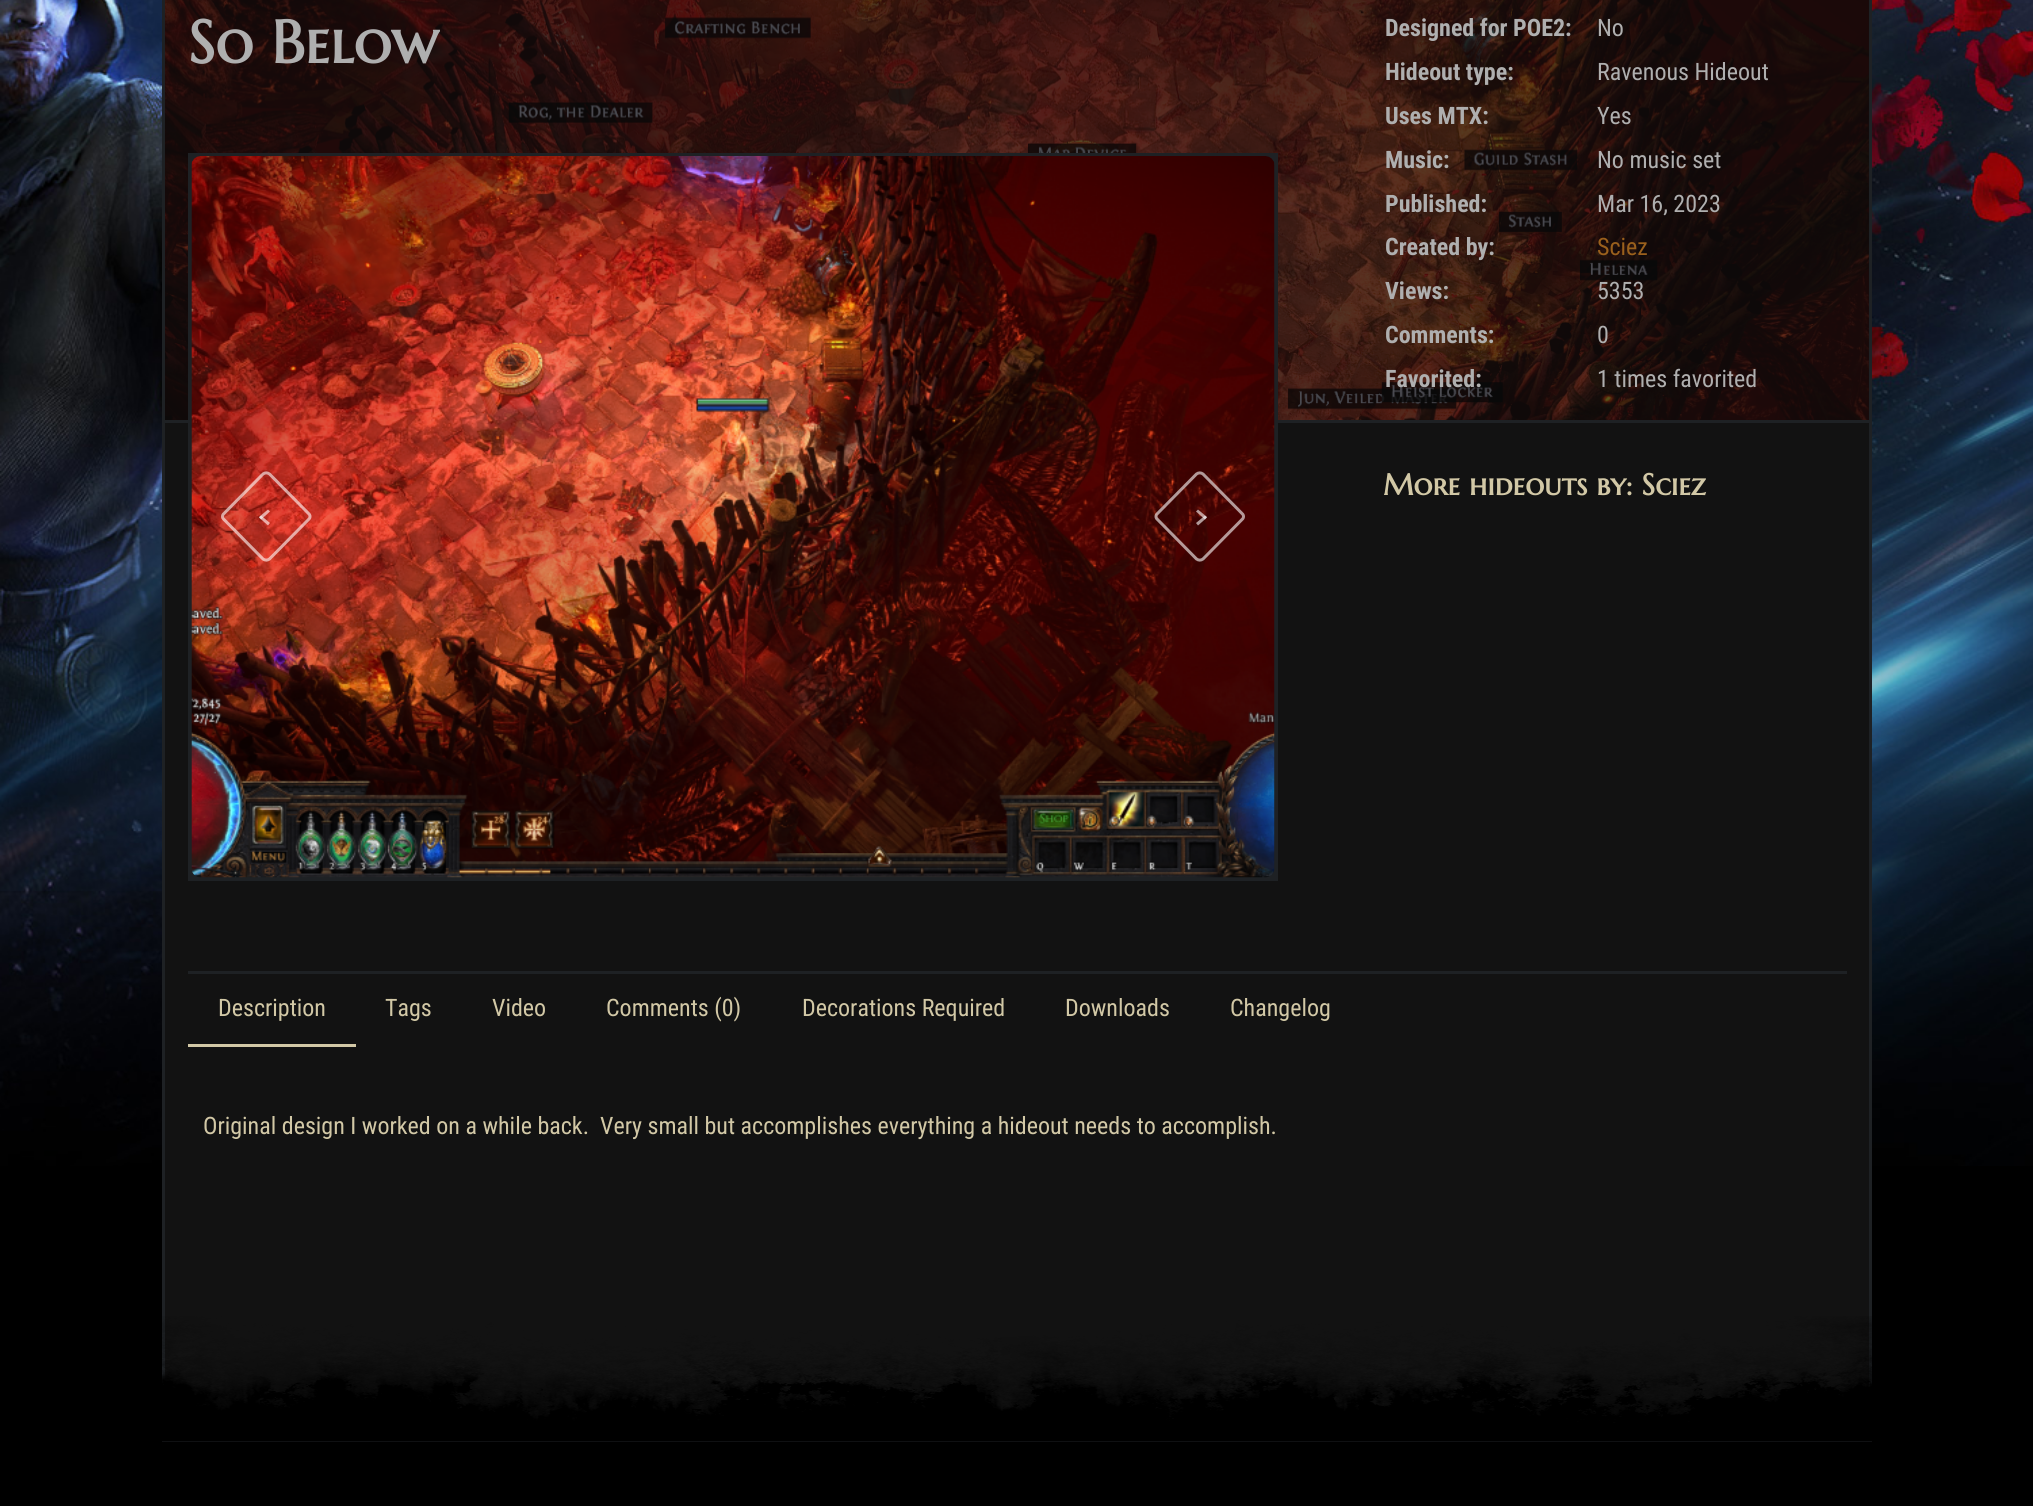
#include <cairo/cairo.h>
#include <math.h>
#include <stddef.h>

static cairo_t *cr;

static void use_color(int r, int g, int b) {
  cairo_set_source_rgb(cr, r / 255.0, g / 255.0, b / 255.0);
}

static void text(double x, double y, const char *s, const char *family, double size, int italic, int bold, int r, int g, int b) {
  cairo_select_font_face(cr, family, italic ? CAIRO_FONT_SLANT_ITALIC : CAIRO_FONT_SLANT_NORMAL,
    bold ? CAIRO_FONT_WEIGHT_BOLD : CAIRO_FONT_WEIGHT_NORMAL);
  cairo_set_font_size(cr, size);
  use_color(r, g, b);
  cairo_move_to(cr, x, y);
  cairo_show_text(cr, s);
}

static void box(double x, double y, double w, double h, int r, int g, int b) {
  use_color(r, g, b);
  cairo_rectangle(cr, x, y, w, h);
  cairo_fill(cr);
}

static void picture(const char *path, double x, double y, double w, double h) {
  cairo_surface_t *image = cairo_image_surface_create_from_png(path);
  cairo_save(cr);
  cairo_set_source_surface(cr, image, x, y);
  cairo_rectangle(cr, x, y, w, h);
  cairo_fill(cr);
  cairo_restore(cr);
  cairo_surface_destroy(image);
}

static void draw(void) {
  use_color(0, 0, 0);
  cairo_paint(cr);
  picture("img_01.png", 0, 0, 2033, 1166);
  box(165, 423, 1704, 1000, 18, 18, 18);
  cairo_rectangle(cr, 163.5, -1.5, 1707, 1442);
  use_color(30, 33, 36);
  cairo_set_line_width(cr, 3);
  cairo_stroke(cr);
  box(165, 0, 1704, 420, 14, 14, 14);
  box(165, 420, 1704, 3, 30, 33, 36);
  picture("img_02.png", 165, 0, 1704, 420);
  box(188, 153, 1090, 728, 30, 33, 36);
  picture("img_03.png", 191, 156, 1084, 722);
  cairo_new_path(cr);
  cairo_move_to(cr, 269.5, 474);
  cairo_line_to(cr, 308.5, 513.5);
  cairo_curve_to(cr, 310.5, 515, 310.5, 518, 308.5, 519.5);
  cairo_line_to(cr, 269.5, 559);
  cairo_curve_to(cr, 267.5, 560.5, 265, 560.5, 263, 559);
  cairo_line_to(cr, 224, 519.5);
  cairo_curve_to(cr, 222, 518, 222, 515, 224, 513.5);
  cairo_line_to(cr, 263, 474);
  cairo_curve_to(cr, 265, 472.5, 267.5, 472.5, 269.5, 474);
  cairo_close_path(cr);
  cairo_set_source_rgba(cr, 1, 1, 1, 0.6);
  cairo_stroke(cr);
  cairo_new_path(cr);
  cairo_move_to(cr, 259, 517);
  cairo_line_to(cr, 268, 509.5);
  cairo_line_to(cr, 270, 511.5);
  cairo_line_to(cr, 261, 519.5);
  cairo_close_path(cr);
  cairo_fill(cr);
  cairo_new_path(cr);
  cairo_move_to(cr, 261, 515.5);
  cairo_line_to(cr, 270, 523);
  cairo_line_to(cr, 268, 525.5);
  cairo_line_to(cr, 259, 517.5);
  cairo_close_path(cr);
  cairo_fill(cr);
  cairo_new_path(cr);
  cairo_move_to(cr, 1203, 474);
  cairo_line_to(cr, 1242, 513.5);
  cairo_curve_to(cr, 1244, 515, 1244, 518, 1242, 519.5);
  cairo_line_to(cr, 1203, 559);
  cairo_curve_to(cr, 1201, 560.5, 1198.5, 560.5, 1196.5, 559);
  cairo_line_to(cr, 1157.5, 519.5);
  cairo_curve_to(cr, 1155.5, 518, 1155.5, 515, 1157.5, 513.5);
  cairo_line_to(cr, 1196.5, 474);
  cairo_curve_to(cr, 1198.5, 472.5, 1201, 472.5, 1203, 474);
  cairo_close_path(cr);
  cairo_stroke(cr);
  cairo_new_path(cr);
  cairo_move_to(cr, 1196, 523);
  cairo_line_to(cr, 1205, 515.5);
  cairo_line_to(cr, 1207, 517.5);
  cairo_line_to(cr, 1198, 525.5);
  cairo_close_path(cr);
  cairo_fill(cr);
  cairo_new_path(cr);
  cairo_move_to(cr, 1198, 509.5);
  cairo_line_to(cr, 1207, 517);
  cairo_line_to(cr, 1205, 519.5);
  cairo_line_to(cr, 1196, 511.5);
  cairo_close_path(cr);
  cairo_fill(cr);
  box(188, 971, 1659, 3, 30, 33, 36);
  box(188, 1044, 168, 3, 210, 200, 166);
  picture("img_04.png", 162, 1316, 1710, 126);
  text(188, 63, "So Below", "Marcellus SC", 60, 0, 1, 175, 175, 175);
  text(1385, 36, "Designed for POE2:", "Roboto Condensed", 24, 0, 1, 175, 175, 175);
  text(1597, 36, "No", "Roboto Condensed", 24, 0, 0, 175, 175, 175);
  text(1385, 80, "Hideout type:", "Roboto Condensed", 24, 0, 1, 175, 175, 175);
  text(1597, 80, "Ravenous Hideout", "Roboto Condensed", 24, 0, 0, 175, 175, 175);
  text(1385, 124, "Uses MTX:", "Roboto Condensed", 24, 0, 1, 175, 175, 175);
  text(1597, 124, "Yes", "Roboto Condensed", 24, 0, 0, 175, 175, 175);
  text(1385, 168, "Music:", "Roboto Condensed", 24, 0, 1, 175, 175, 175);
  text(1597, 168, "No music set", "Roboto Condensed", 24, 0, 0, 175, 175, 175);
  text(1385, 212, "Published:", "Roboto Condensed", 24, 0, 1, 175, 175, 175);
  text(1597, 212, "Mar 16, 2023", "Roboto Condensed", 24, 0, 0, 175, 175, 175);
  text(1385, 255, "Created by:", "Roboto Condensed", 24, 0, 1, 175, 175, 175);
  text(1597, 255, "Sciez", "Roboto Condensed", 24, 0, 0, 154, 96, 28);
  text(1385, 299, "Views:", "Roboto Condensed", 24, 0, 1, 175, 175, 175);
  text(1597, 299, "5353", "Roboto Condensed", 24, 0, 0, 175, 175, 175);
  text(1385, 343, "Comments:", "Roboto Condensed", 24, 0, 1, 175, 175, 175);
  text(1597, 343, "0", "Roboto Condensed", 24, 0, 0, 175, 175, 175);
  text(1385, 387, "Favorited:", "Roboto Condensed", 24, 0, 1, 175, 175, 175);
  text(1597, 387, "1 times favorited", "Roboto Condensed", 24, 0, 0, 175, 175, 175);
  text(1383, 495, "More hideouts by: Sciez", "Marcellus SC", 30, 0, 1, 210, 200, 166);
  text(218, 1016, "Description", "Roboto Condensed", 24, 0, 0, 210, 200, 166);
  text(385, 1016, "Tags", "Roboto Condensed", 24, 0, 0, 210, 200, 166);
  text(492, 1016, "Video", "Roboto Condensed", 24, 0, 0, 210, 200, 166);
  text(606, 1016, "Comments (0)", "Roboto Condensed", 24, 0, 0, 210, 200, 166);
  text(802, 1016, "Decorations Required", "Roboto Condensed", 24, 0, 0, 210, 200, 166);
  text(1065, 1016, "Downloads", "Roboto Condensed", 24, 0, 0, 210, 200, 166);
  text(1230, 1016, "Changelog", "Roboto Condensed", 24, 0, 0, 210, 200, 166);
  text(203, 1134, "Original design I worked on a while back.  Very small but accomplishes everything a hideout needs to accomplish.", "Roboto Condensed", 24, 0, 0, 210, 200, 166);
}

int main(void) {
  cairo_surface_t *surface = cairo_image_surface_create(CAIRO_FORMAT_RGB24, 2033, 1506);
  cr = cairo_create(surface);
  cairo_font_options_t *options = cairo_font_options_create();
  cairo_font_options_set_hint_metrics(options, CAIRO_HINT_METRICS_OFF);
  cairo_font_options_set_hint_style(options, CAIRO_HINT_STYLE_NONE);
  cairo_set_font_options(cr, options);
  cairo_set_miter_limit(cr, 4);
  draw();
  cairo_surface_write_to_png(surface, "out.png");
  cairo_font_options_destroy(options);
  cairo_destroy(cr);
  cairo_surface_destroy(surface);
  return 0;
}
